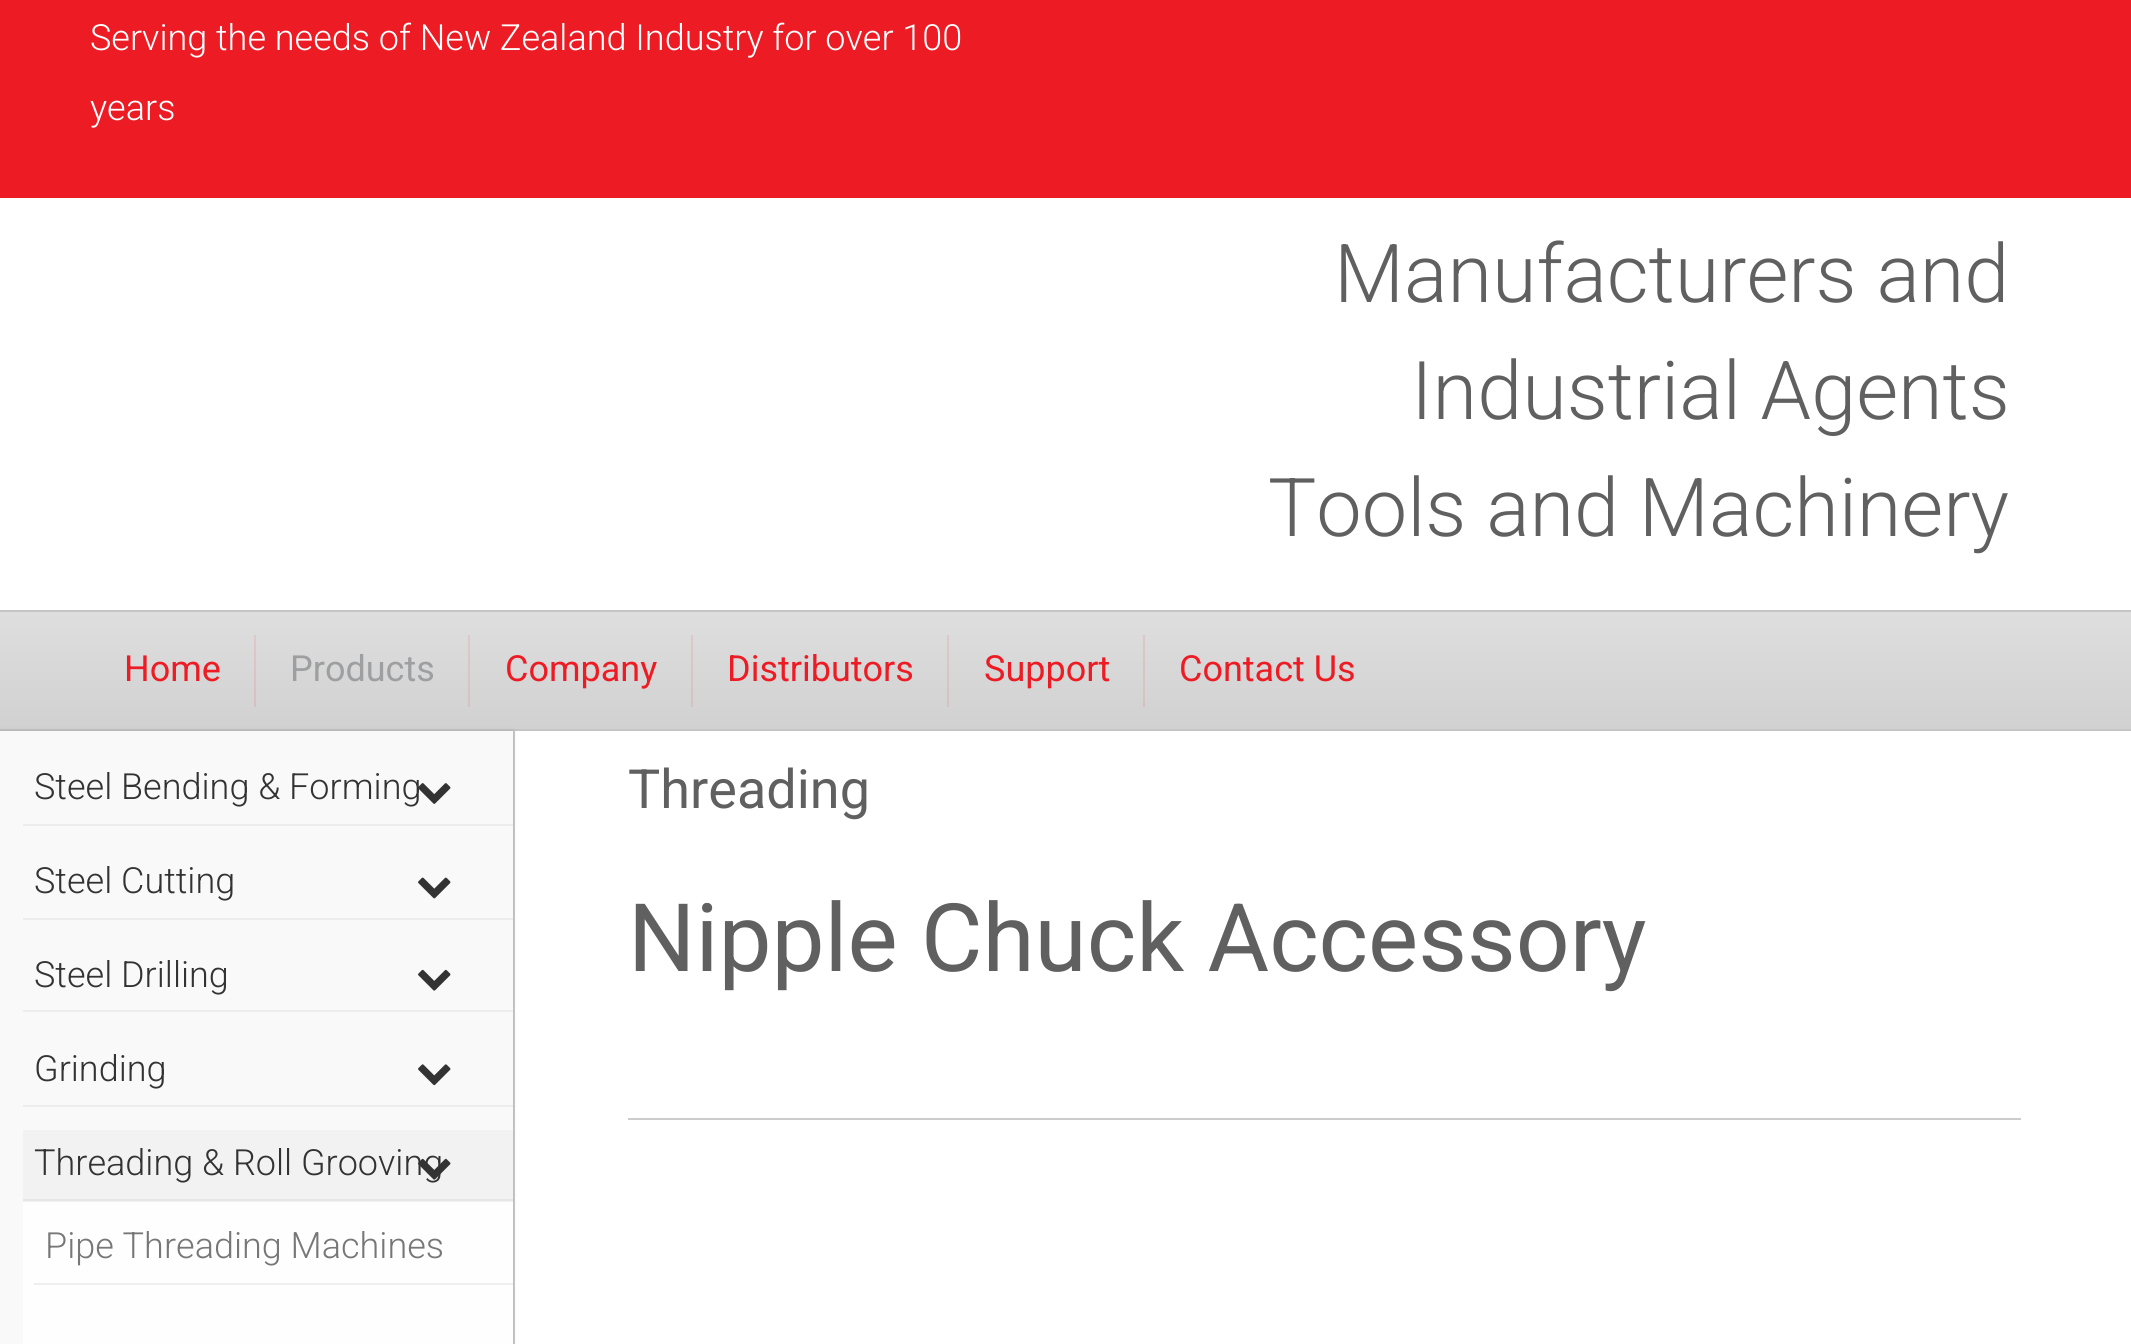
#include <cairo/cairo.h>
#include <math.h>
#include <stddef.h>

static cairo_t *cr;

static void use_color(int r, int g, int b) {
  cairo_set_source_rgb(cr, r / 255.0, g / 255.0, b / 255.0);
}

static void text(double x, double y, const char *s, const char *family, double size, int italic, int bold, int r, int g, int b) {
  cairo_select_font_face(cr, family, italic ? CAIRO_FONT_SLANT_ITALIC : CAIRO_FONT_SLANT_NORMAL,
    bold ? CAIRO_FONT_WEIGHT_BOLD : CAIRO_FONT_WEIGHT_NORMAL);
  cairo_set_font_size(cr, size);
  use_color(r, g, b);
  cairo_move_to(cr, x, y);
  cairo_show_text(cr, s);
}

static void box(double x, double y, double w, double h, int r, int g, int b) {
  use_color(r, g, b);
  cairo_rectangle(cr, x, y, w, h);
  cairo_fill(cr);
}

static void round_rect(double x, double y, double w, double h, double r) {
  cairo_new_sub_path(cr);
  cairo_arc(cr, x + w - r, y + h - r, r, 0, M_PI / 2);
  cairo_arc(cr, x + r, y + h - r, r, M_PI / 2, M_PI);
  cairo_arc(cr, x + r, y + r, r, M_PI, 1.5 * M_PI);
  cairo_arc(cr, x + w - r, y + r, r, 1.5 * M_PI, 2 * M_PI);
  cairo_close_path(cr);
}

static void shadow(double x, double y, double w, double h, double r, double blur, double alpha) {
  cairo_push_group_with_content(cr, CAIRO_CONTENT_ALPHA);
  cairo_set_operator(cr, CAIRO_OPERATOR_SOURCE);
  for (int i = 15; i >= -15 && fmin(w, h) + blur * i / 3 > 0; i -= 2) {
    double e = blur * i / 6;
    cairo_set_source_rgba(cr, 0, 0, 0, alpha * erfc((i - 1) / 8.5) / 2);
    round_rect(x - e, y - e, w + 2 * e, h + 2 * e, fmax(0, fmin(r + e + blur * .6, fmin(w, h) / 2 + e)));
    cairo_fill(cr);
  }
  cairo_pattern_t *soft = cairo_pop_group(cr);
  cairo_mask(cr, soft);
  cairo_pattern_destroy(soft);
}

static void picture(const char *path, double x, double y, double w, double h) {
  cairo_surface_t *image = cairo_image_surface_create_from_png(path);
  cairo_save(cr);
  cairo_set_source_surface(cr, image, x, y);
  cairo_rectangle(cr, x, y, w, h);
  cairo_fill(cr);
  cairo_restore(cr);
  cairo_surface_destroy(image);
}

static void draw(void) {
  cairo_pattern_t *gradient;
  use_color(237, 28, 36);
  cairo_paint(cr);
  box(0, 198, 2131, 412, 255, 255, 255);
  gradient = cairo_pattern_create_linear(1067, 612, 1067, 729);
  cairo_pattern_add_color_stop_rgba(gradient, 0, 0.871, 0.871, 0.871, 1);
  cairo_pattern_add_color_stop_rgba(gradient, 1, 0.82, 0.82, 0.82, 1);
  cairo_set_source(cr, gradient);
  cairo_pattern_destroy(gradient);
  cairo_rectangle(cr, 0, 612, 2131, 117);
  cairo_fill(cr);
  gradient = cairo_pattern_create_linear(1067, 612, 1067, 729);
  cairo_pattern_add_color_stop_rgba(gradient, 0, 0.878, 0.796, 0.796, 1);
  cairo_pattern_add_color_stop_rgba(gradient, 1, 0.831, 0.749, 0.753, 1);
  cairo_set_source(cr, gradient);
  cairo_pattern_destroy(gradient);
  cairo_rectangle(cr, 1143, 635, 2, 72);
  cairo_fill(cr);
  cairo_rectangle(cr, 947, 635, 2, 72);
  cairo_fill(cr);
  cairo_rectangle(cr, 691, 635, 2, 72);
  cairo_fill(cr);
  cairo_rectangle(cr, 468, 635, 2, 72);
  cairo_fill(cr);
  cairo_rectangle(cr, 254, 635, 2, 72);
  cairo_fill(cr);
  box(0, 610, 2131, 2, 197, 197, 197);
  box(0, 729, 2131, 2, 197, 197, 197);
  box(515, 731, 1616, 613, 255, 255, 255);
  box(513, 731, 2, 613, 204, 204, 204);
  use_color(0, 0, 0);
  shadow(0, 731, 513, 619, 0, 2, 0.17);
  box(0, 731, 513, 613, 249, 249, 249);
  box(23, 824, 490, 2, 237, 237, 237);
  box(23, 918, 490, 2, 237, 237, 237);
  picture("img_02.png", 418, 877, 33, 22);
  box(23, 1010, 490, 2, 237, 237, 237);
  picture("img_03.png", 418, 969, 33, 22);
  box(23, 1105, 490, 2, 237, 237, 237);
  picture("img_04.png", 418, 1064, 33, 22);
  box(23, 1130, 490, 72, 242, 242, 242);
  box(23, 1199, 490, 2, 230, 230, 230);
  box(23, 1202, 490, 142, 254, 254, 254);
  box(34, 1283, 479, 2, 238, 238, 238);
  box(628, 1118, 1393, 2, 204, 204, 204);
  text(90, 50, "Serving the needs of New Zealand Industry for over 100", "Roboto Light", 36, 0, 0, 255, 255, 255);
  text(90, 120, "years", "Roboto Light", 36, 0, 0, 255, 255, 255);
  text(1334, 302, "Manufacturers and", "Roboto Light", 81, 0, 0, 96, 96, 96);
  text(1411, 419, "Industrial Agents", "Roboto Light", 81, 0, 0, 96, 96, 96);
  text(1268, 536, "Tools and Machinery", "Roboto Light", 81, 0, 0, 96, 96, 96);
  text(124, 681, "Home", "Roboto", 36, 0, 0, 237, 28, 36);
  text(290, 681, "Products", "Roboto", 36, 0, 0, 158, 159, 161);
  text(505, 681, "Company", "Roboto", 36, 0, 0, 237, 28, 36);
  text(727, 681, "Distributors", "Roboto", 36, 0, 0, 237, 28, 36);
  text(984, 681, "Support", "Roboto", 36, 0, 0, 237, 28, 36);
  text(1179, 681, "Contact Us", "Roboto", 36, 0, 0, 237, 28, 36);
  text(34, 799, "Steel Bending & Forming", "Roboto Light", 36, 0, 0, 51, 51, 51);
  picture("img_01.png", 418, 783, 33, 21);
  text(34, 893, "Steel Cutting", "Roboto Light", 36, 0, 0, 51, 51, 51);
  text(34, 987, "Steel Drilling", "Roboto Light", 36, 0, 0, 51, 51, 51);
  text(34, 1081, "Grinding", "Roboto Light", 36, 0, 0, 51, 51, 51);
  text(34, 1175, "Threading & Roll Grooving", "Roboto Light", 36, 0, 0, 51, 51, 51);
  picture("img_05.png", 418, 1158, 33, 22);
  text(45, 1258, "Pipe Threading Machines", "Roboto Light", 36, 0, 0, 119, 119, 119);
  text(628, 808, "Threading", "Roboto", 54, 0, 0, 96, 96, 96);
  text(628, 971, "Nipple Chuck Accessory", "Roboto", 94.5, 0, 0, 96, 96, 96);
}

int main(void) {
  cairo_surface_t *surface = cairo_image_surface_create(CAIRO_FORMAT_RGB24, 2131, 1344);
  cr = cairo_create(surface);
  cairo_font_options_t *options = cairo_font_options_create();
  cairo_font_options_set_hint_metrics(options, CAIRO_HINT_METRICS_OFF);
  cairo_font_options_set_hint_style(options, CAIRO_HINT_STYLE_NONE);
  cairo_set_font_options(cr, options);
  cairo_set_miter_limit(cr, 4);
  draw();
  cairo_surface_write_to_png(surface, "out.png");
  cairo_font_options_destroy(options);
  cairo_destroy(cr);
  cairo_surface_destroy(surface);
  return 0;
}
